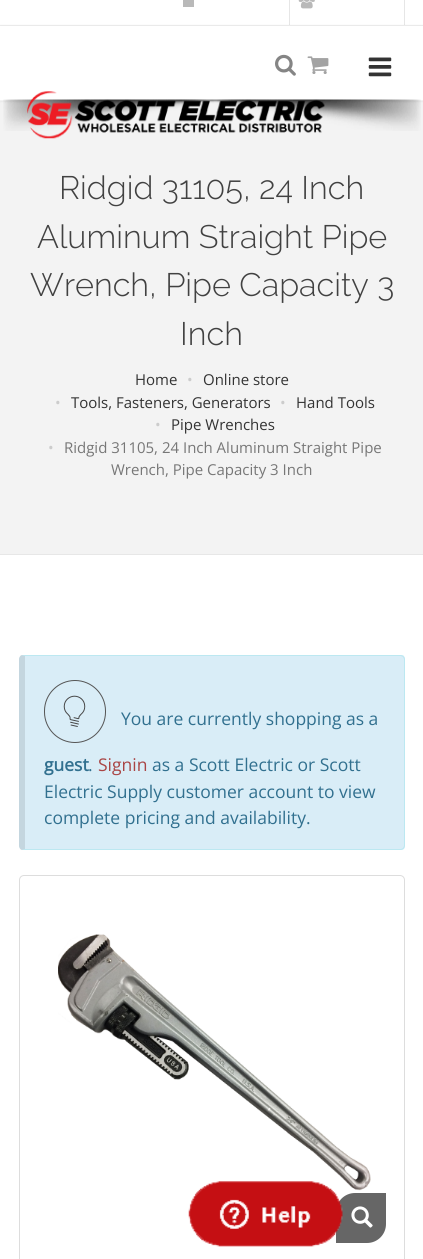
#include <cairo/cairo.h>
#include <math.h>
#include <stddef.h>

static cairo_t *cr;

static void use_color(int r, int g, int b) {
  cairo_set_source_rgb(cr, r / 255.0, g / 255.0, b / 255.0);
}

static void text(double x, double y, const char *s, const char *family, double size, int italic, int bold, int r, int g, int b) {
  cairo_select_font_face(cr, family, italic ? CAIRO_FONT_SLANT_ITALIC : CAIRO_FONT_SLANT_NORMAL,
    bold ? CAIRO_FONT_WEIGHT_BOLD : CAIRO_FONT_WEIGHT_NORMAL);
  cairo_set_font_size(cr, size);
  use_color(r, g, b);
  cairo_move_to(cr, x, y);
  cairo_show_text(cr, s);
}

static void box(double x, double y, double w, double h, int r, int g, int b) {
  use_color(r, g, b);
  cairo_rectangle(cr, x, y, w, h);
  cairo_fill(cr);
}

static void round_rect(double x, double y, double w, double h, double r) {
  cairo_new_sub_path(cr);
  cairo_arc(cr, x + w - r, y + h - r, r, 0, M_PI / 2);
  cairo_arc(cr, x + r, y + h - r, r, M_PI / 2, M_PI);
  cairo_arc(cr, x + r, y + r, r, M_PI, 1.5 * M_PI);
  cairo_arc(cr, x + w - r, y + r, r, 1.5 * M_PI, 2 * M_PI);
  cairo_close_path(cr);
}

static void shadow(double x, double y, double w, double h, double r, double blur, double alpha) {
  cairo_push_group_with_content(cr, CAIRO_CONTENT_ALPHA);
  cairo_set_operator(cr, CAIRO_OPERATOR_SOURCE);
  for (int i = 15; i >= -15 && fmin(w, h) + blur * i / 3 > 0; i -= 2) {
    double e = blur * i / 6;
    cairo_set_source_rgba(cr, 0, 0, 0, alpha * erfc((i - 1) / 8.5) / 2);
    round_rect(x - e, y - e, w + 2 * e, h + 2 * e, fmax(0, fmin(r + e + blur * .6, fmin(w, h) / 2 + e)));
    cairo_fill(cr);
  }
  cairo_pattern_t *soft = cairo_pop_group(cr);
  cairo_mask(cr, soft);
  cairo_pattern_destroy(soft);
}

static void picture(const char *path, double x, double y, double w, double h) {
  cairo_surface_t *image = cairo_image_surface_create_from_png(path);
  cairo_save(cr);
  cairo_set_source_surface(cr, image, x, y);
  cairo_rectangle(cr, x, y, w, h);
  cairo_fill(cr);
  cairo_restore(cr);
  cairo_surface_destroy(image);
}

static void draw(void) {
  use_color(255, 255, 255);
  cairo_paint(cr);
  box(0, 25, 423, 1, 242, 242, 242);
  box(289, 0, 1, 25, 230, 230, 230);
  box(183, 0, 11, 7, 185, 185, 185);
  box(404, 0, 1, 25, 230, 230, 230);
  picture("img_01.png", 298, 0, 17, 9);
  box(0, 101, 423, 453, 243, 243, 243);
  use_color(0, 0, 0);
  shadow(0, 26, 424, 75, 0, 1, 0.1);
  box(0, 26, 423, 74, 255, 255, 255);
  box(0, 100, 423, 1, 242, 242, 242);
  picture("img_02.png", 275, 54, 21, 22);
  picture("img_03.png", 307, 56, 22, 18);
  picture("img_04.png", 368, 57, 24, 20);
  picture("img_06.png", 3, 99, 418, 32);
  picture("img_05.png", 27, 91, 298, 48);
  box(0, 554, 423, 1, 231, 231, 231);
  use_color(217, 237, 247);
  round_rect(19, 655, 386, 195, 4);
  cairo_fill(cr);
  use_color(188, 232, 241);
  cairo_new_path(cr);
  cairo_move_to(cr, 22, 655);
  cairo_line_to(cr, 21, 655);
  cairo_line_to(cr, 25, 656);
  cairo_line_to(cr, 401, 656);
  cairo_line_to(cr, 403, 657);
  cairo_line_to(cr, 404, 656);
  cairo_line_to(cr, 401, 655);
  cairo_close_path(cr);
  cairo_fill(cr);
  cairo_new_path(cr);
  cairo_move_to(cr, 405, 846);
  cairo_line_to(cr, 405, 659);
  cairo_curve_to(cr, 405, 658, 404, 657, 404, 656);
  cairo_line_to(cr, 403, 657);
  cairo_line_to(cr, 404, 659);
  cairo_line_to(cr, 404, 846);
  cairo_line_to(cr, 403, 848);
  cairo_line_to(cr, 404, 849);
  cairo_close_path(cr);
  cairo_fill(cr);
  cairo_new_path(cr);
  cairo_move_to(cr, 22, 850);
  cairo_line_to(cr, 401, 850);
  cairo_line_to(cr, 404, 849);
  cairo_line_to(cr, 403, 848);
  cairo_line_to(cr, 401, 849);
  cairo_line_to(cr, 25, 849);
  cairo_line_to(cr, 21, 850);
  cairo_close_path(cr);
  cairo_fill(cr);
  cairo_set_source_rgba(cr, 0, 0, 0, 0.1);
  cairo_new_path(cr);
  cairo_move_to(cr, 21, 655);
  cairo_curve_to(cr, 20, 656, 19, 658, 19, 659);
  cairo_line_to(cr, 19, 846);
  cairo_curve_to(cr, 19, 847, 20, 849, 21, 850);
  cairo_line_to(cr, 25, 849);
  cairo_line_to(cr, 25, 656);
  cairo_close_path(cr);
  cairo_fill(cr);
  round_rect(44.5, 680.5, 61, 62, 30.5);
  use_color(85, 85, 85);
  cairo_set_line_width(cr, 1);
  cairo_stroke(cr);
  picture("img_07.png", 63, 695, 23, 32);
  round_rect(19.5, 875.5, 385, 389, 4.5);
  use_color(221, 221, 221);
  cairo_stroke(cr);
  picture("img_08.png", 58, 934, 313, 257);
  use_color(102, 102, 102);
  cairo_new_path(cr);
  cairo_move_to(cr, 355, 1193);
  cairo_line_to(cr, 386, 1193);
  cairo_line_to(cr, 386, 1224);
  cairo_curve_to(cr, 386, 1234.5, 377.5, 1243, 367, 1243);
  cairo_line_to(cr, 336, 1243);
  cairo_line_to(cr, 336, 1212);
  cairo_curve_to(cr, 336, 1201.5, 344.5, 1193, 355, 1193);
  cairo_close_path(cr);
  cairo_fill(cr);
  picture("img_09.png", 351, 1206, 22, 22);
  picture("img_10.png", 188, 1181, 155, 66);
  text(59, 199, "Ridgid 31105, 24 Inch", "Raleway Light", 32.5, 0, 0, 65, 65, 65);
  text(37, 248, "Aluminum Straight Pipe", "Raleway Light", 32.5, 0, 0, 65, 65, 65);
  text(30, 296, "Wrench, Pipe Capacity 3", "Raleway Light", 32.5, 0, 0, 65, 65, 65);
  text(180, 345, "Inch", "Raleway Light", 32.5, 0, 0, 65, 65, 65);
  text(135, 385, "Home", "Open Sans", 15, 0, 0, 51, 51, 51);
  text(187, 385, "•", "Open Sans", 15, 0, 0, 204, 204, 204);
  text(203, 385, "Online store", "Open Sans", 15, 0, 0, 51, 51, 51);
  text(55, 408, "•", "Open Sans", 15, 0, 0, 204, 204, 204);
  text(71, 408, "Tools, Fasteners, Generators", "Open Sans", 15, 0, 0, 51, 51, 51);
  text(280, 408, "•", "Open Sans", 15, 0, 0, 204, 204, 204);
  text(296, 408, "Hand Tools", "Open Sans", 15, 0, 0, 51, 51, 51);
  text(155, 430, "•", "Open Sans", 15, 0, 0, 204, 204, 204);
  text(171, 430, "Pipe Wrenches", "Open Sans", 15, 0, 0, 51, 51, 51);
  text(48, 453, "•", "Open Sans", 15, 0, 0, 204, 204, 204);
  text(64, 453, "Ridgid 31105, 24 Inch Aluminum Straight Pipe", "Open Sans", 15, 0, 0, 119, 119, 119);
  text(111, 475, "Wrench, Pipe Capacity 3 Inch", "Open Sans", 15, 0, 0, 119, 119, 119);
  text(121, 725, "You are currently shopping as a", "Open Sans", 17.5, 0, 0, 49, 112, 143);
  text(44, 771, "guest", "Open Sans", 17.5, 0, 1, 49, 112, 143);
  text(88, 771, ".", "Open Sans", 17.5, 0, 0, 49, 112, 143);
  text(98, 771, "Signin", "Open Sans", 17.5, 0, 0, 169, 69, 69);
  text(152, 771, "as a Scott Electric or Scott", "Open Sans", 17.5, 0, 0, 49, 112, 143);
  text(44, 798, "Electric Supply customer account to view", "Open Sans", 17.5, 0, 0, 49, 112, 143);
  text(44, 824, "complete pricing and availability.", "Open Sans", 17.5, 0, 0, 49, 112, 143);
}

int main(void) {
  cairo_surface_t *surface = cairo_image_surface_create(CAIRO_FORMAT_RGB24, 423, 1259);
  cr = cairo_create(surface);
  cairo_font_options_t *options = cairo_font_options_create();
  cairo_font_options_set_hint_metrics(options, CAIRO_HINT_METRICS_OFF);
  cairo_font_options_set_hint_style(options, CAIRO_HINT_STYLE_NONE);
  cairo_set_font_options(cr, options);
  cairo_set_miter_limit(cr, 4);
  draw();
  cairo_surface_write_to_png(surface, "out.png");
  cairo_font_options_destroy(options);
  cairo_destroy(cr);
  cairo_surface_destroy(surface);
  return 0;
}
